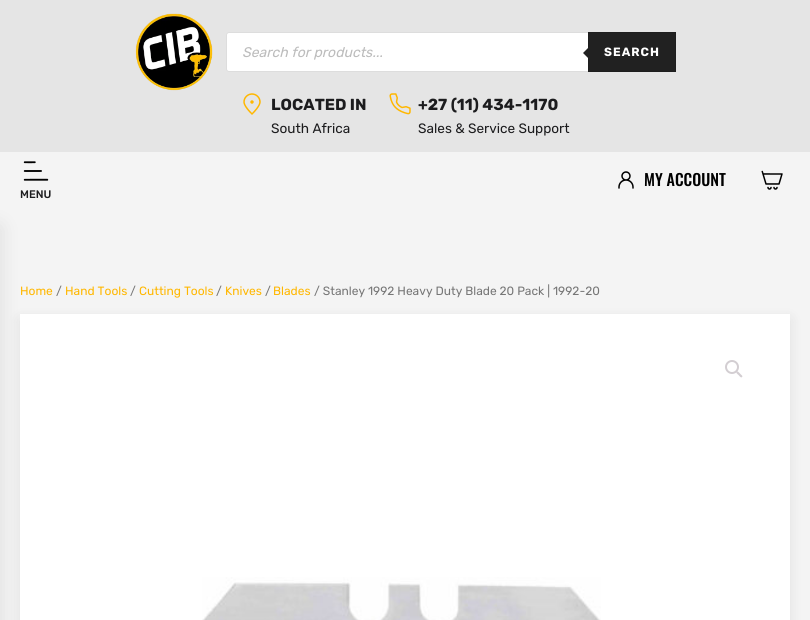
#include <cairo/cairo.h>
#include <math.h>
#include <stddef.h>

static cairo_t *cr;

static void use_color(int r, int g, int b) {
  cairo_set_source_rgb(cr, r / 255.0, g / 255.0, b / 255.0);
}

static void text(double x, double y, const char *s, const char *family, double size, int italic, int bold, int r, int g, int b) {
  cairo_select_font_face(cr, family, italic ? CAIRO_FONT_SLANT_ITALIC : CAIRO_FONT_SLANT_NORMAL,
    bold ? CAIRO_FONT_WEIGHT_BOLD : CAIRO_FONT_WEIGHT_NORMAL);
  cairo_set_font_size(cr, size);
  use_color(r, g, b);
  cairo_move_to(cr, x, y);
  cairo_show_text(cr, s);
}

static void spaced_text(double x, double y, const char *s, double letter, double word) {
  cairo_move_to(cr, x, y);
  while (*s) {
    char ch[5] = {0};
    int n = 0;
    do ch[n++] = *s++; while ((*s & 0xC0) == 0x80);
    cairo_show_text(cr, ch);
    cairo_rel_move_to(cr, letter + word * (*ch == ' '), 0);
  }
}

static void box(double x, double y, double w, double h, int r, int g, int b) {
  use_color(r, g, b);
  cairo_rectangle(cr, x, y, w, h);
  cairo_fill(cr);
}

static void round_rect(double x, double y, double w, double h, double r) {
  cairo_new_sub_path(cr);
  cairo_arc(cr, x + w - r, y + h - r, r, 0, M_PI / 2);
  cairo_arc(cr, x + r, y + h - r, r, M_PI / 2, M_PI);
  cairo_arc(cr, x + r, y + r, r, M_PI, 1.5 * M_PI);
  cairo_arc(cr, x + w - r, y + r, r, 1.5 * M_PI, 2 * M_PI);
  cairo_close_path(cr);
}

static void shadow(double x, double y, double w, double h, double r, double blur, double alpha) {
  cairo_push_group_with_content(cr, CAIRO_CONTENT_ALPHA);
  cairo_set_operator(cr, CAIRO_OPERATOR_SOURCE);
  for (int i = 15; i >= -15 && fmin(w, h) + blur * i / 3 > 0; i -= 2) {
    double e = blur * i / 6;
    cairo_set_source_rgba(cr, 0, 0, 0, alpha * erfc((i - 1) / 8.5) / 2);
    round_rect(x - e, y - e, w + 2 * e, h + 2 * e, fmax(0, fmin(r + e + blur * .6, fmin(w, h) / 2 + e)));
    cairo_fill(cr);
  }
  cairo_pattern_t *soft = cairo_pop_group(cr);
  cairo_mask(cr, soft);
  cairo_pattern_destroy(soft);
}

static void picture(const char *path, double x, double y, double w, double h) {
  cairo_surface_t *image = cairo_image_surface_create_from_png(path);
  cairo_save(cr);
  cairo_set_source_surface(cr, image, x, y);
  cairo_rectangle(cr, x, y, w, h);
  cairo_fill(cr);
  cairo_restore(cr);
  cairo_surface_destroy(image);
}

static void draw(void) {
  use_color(229, 229, 229);
  cairo_paint(cr);
  picture("img_01.png", 135, 13, 78, 78);
  use_color(255, 255, 255);
  round_rect(226.5, 32.5, 449, 39, 2.5);
  cairo_fill_preserve(cr);
  use_color(221, 221, 221);
  cairo_set_line_width(cr, 1);
  cairo_stroke(cr);
  use_color(33, 33, 33);
  cairo_rectangle(cr, 588.5, 32.5, 87, 39);
  cairo_fill_preserve(cr);
  use_color(30, 30, 30);
  cairo_stroke(cr);
  use_color(33, 33, 33);
  cairo_new_path(cr);
  cairo_move_to(cr, 591, 45);
  cairo_line_to(cr, 591, 61);
  cairo_line_to(cr, 583, 53);
  cairo_close_path(cr);
  cairo_fill(cr);
  picture("img_02.png", 243, 93, 18, 22);
  picture("img_03.png", 389, 93, 22, 22);
  box(0, 152, 810, 468, 244, 244, 244);
  picture("img_04.png", 618, 171, 16, 18);
  picture("img_05.png", 761, 170, 22, 20);
  picture("img_06.png", 23, 161, 26, 20);
  use_color(0, 0, 0);
  shadow(20, 319, 770, 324, 0, 7.5, 0.08);
  box(20, 314, 770, 306, 255, 255, 255);
  use_color(0, 0, 0);
  shadow(-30, 227, 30, 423, 0, 10, 0.1);
  cairo_arc(cr, 732, 367, 6, 0, 2 * M_PI);
  use_color(211, 206, 210);
  cairo_set_line_width(cr, 2);
  cairo_stroke(cr);
  cairo_new_path(cr);
  cairo_move_to(cr, 736.5, 371.5);
  cairo_curve_to(cr, 737.5, 370.5, 739.5, 373, 740, 373.5);
  cairo_curve_to(cr, 740.5, 374.5, 743.5, 376, 742, 377);
  cairo_curve_to(cr, 741, 378.5, 739, 375.5, 738.5, 375);
  cairo_curve_to(cr, 738, 374.5, 735.5, 373, 736.5, 371.5);
  cairo_close_path(cr);
  cairo_fill(cr);
  picture("img_07.png", 202, 577, 399, 43);
  text(242, 57, "Search for products...", "Rubik Light", 14, 1, 0, 188, 188, 188);
  cairo_select_font_face(cr, "Rubik Light", CAIRO_FONT_SLANT_NORMAL, CAIRO_FONT_WEIGHT_NORMAL);
  cairo_set_font_size(cr, 12);
  use_color(255, 255, 255);
  spaced_text(604, 56, "SEARCH", 1, 0);
  text(271, 110, "LOCATED IN", "Rubik Light", 16, 0, 0, 28, 28, 30);
  text(271, 133, "South Africa", "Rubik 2 Light", 13.6, 0, 0, 28, 28, 30);
  text(418, 110, "+27 (11) 434-1170", "Rubik Light", 16, 0, 0, 28, 28, 30);
  text(418, 133, "Sales & Service Support", "Rubik 2 Light", 13.6, 0, 0, 28, 28, 30);
  text(644, 186, "MY ACCOUNT", "Oswald Medium", 16, 0, 0, 0, 0, 0);
  text(20, 198, "MENU", "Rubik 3 Light", 11, 0, 0, 28, 28, 30);
  text(20, 295, "Home", "Rubik 2 Light", 12, 0, 0, 255, 183, 0);
  text(56, 295, "/", "Rubik 2 Light", 12, 0, 0, 118, 118, 118);
  text(65, 295, "Hand Tools", "Rubik 2 Light", 12, 0, 0, 255, 183, 0);
  text(130, 295, "/", "Rubik 2 Light", 12, 0, 0, 118, 118, 118);
  text(139, 295, "Cutting Tools", "Rubik 2 Light", 12, 0, 0, 255, 183, 0);
  text(216, 295, "/", "Rubik 2 Light", 12, 0, 0, 118, 118, 118);
  text(225, 295, "Knives", "Rubik 2 Light", 12, 0, 0, 255, 183, 0);
  text(265, 295, "/", "Rubik 2 Light", 12, 0, 0, 118, 118, 118);
  text(273, 295, "Blades", "Rubik 2 Light", 12, 0, 0, 255, 183, 0);
  text(314, 295, "/ Stanley 1992 Heavy Duty Blade 20 Pack | 1992-20", "Rubik 2 Light", 12, 0, 0, 118, 118, 118);
}

int main(void) {
  cairo_surface_t *surface = cairo_image_surface_create(CAIRO_FORMAT_RGB24, 810, 620);
  cr = cairo_create(surface);
  cairo_font_options_t *options = cairo_font_options_create();
  cairo_font_options_set_hint_metrics(options, CAIRO_HINT_METRICS_OFF);
  cairo_font_options_set_hint_style(options, CAIRO_HINT_STYLE_NONE);
  cairo_set_font_options(cr, options);
  cairo_set_miter_limit(cr, 4);
  draw();
  cairo_surface_write_to_png(surface, "out.png");
  cairo_font_options_destroy(options);
  cairo_destroy(cr);
  cairo_surface_destroy(surface);
  return 0;
}
